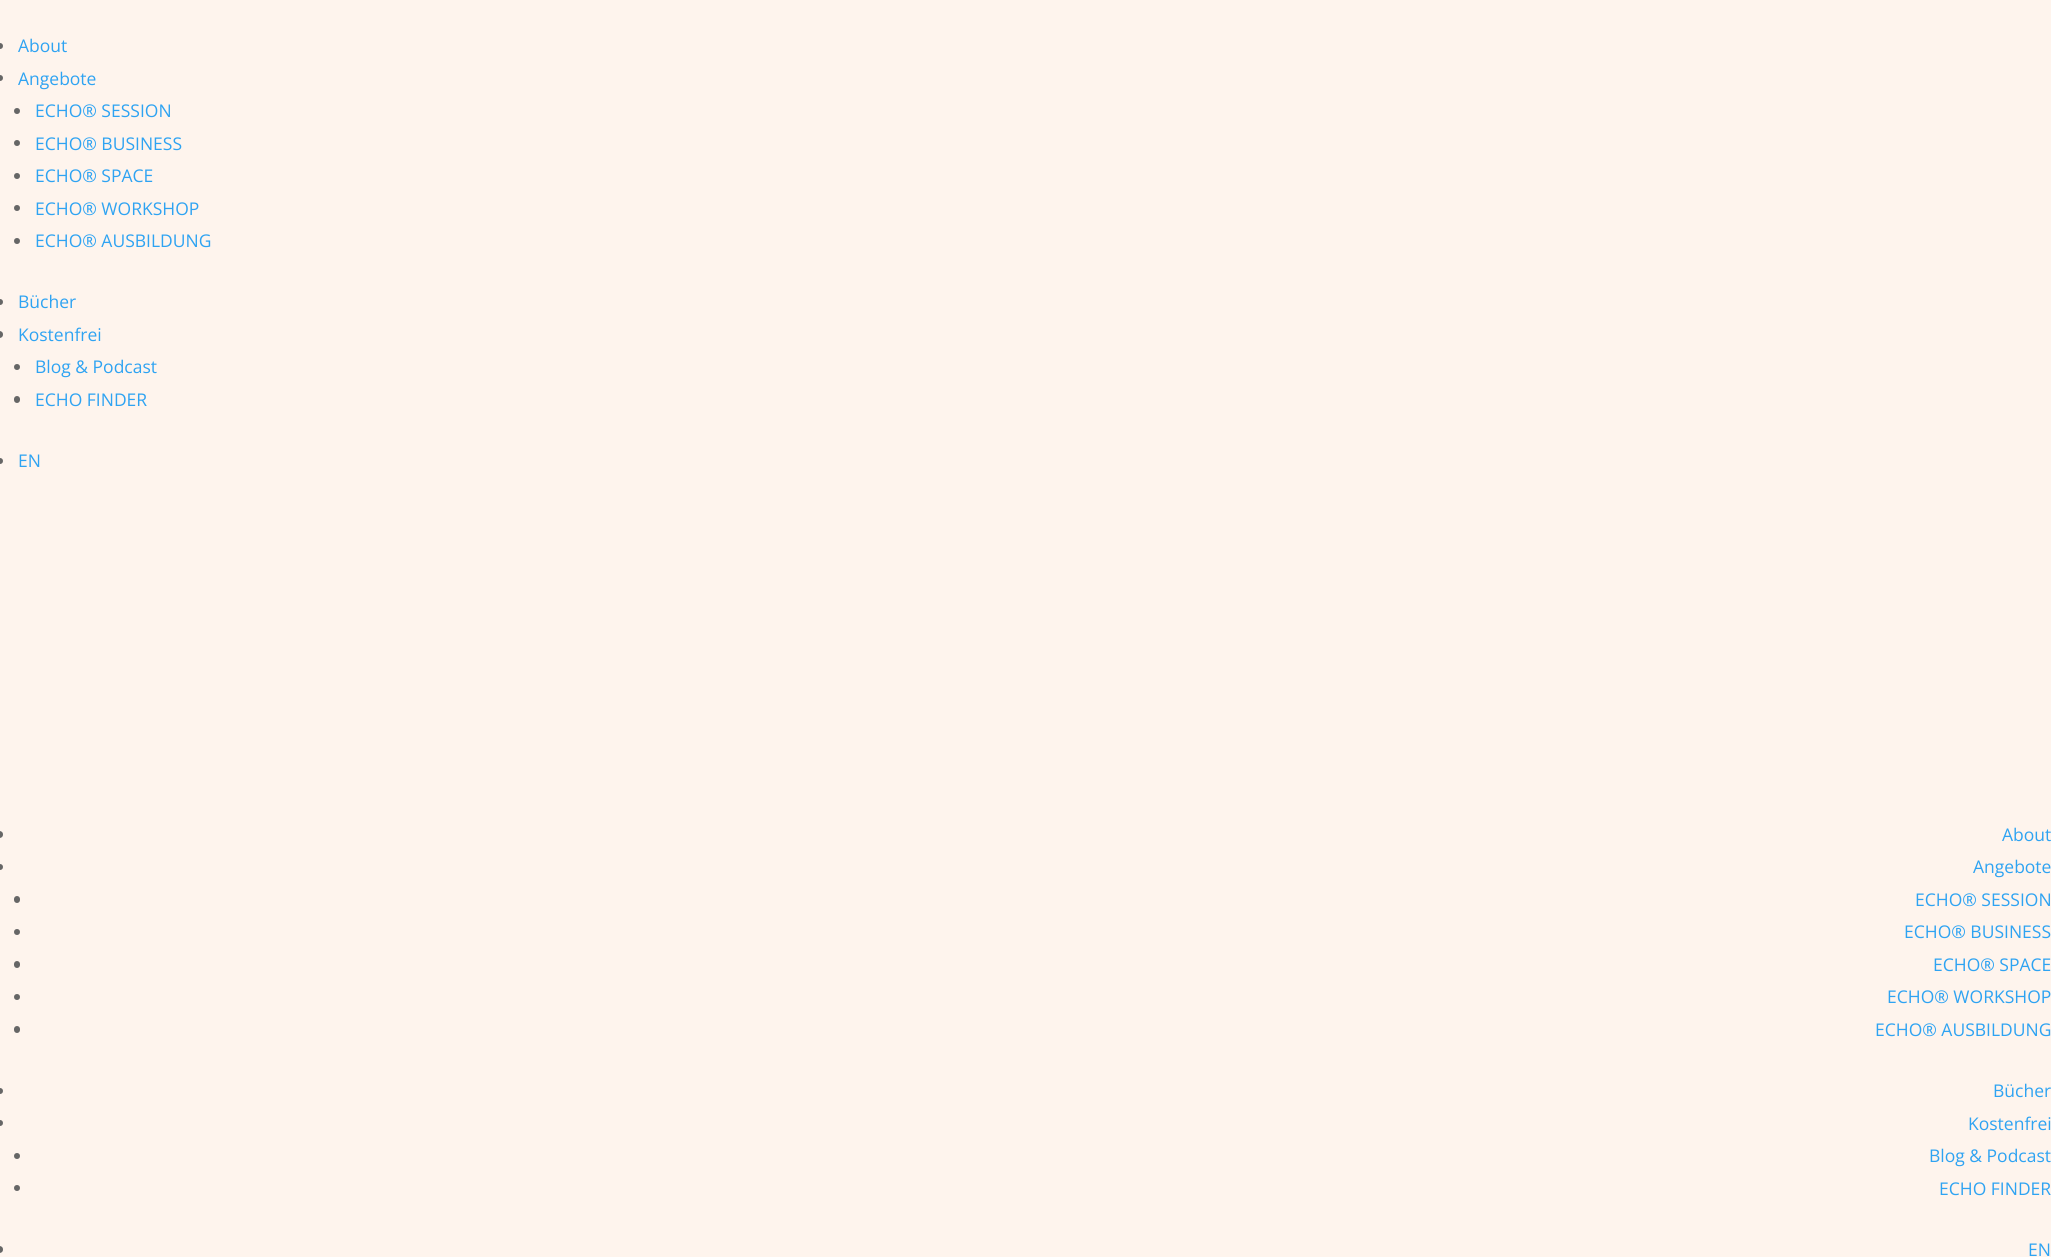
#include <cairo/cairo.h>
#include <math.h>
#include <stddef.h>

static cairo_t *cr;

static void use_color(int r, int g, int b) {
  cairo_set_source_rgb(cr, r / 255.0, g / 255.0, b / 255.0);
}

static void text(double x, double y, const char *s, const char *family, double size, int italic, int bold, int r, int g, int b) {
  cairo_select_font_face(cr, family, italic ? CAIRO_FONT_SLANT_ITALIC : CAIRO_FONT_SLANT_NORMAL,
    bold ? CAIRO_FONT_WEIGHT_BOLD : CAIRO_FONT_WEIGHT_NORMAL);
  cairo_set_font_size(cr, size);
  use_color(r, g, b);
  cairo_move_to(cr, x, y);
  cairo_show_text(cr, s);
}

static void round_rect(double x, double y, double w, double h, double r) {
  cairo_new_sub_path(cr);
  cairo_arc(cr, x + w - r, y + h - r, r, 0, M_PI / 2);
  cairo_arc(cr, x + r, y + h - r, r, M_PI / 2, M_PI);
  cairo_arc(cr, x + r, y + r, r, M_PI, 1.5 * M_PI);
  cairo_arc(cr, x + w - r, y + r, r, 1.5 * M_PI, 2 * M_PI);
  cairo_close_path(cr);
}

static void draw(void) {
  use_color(254, 244, 237);
  cairo_paint(cr);
  use_color(102, 102, 102);
  cairo_arc(cr, 0, 46, 3, 0, 2 * M_PI);
  cairo_fill(cr);
  cairo_arc(cr, 0, 78, 3, 0, 2 * M_PI);
  cairo_fill(cr);
  cairo_arc(cr, 17, 111, 3, 0, 2 * M_PI);
  cairo_fill(cr);
  cairo_arc(cr, 17, 143, 3, 0, 2 * M_PI);
  cairo_fill(cr);
  cairo_arc(cr, 17, 176, 3, 0, 2 * M_PI);
  cairo_fill(cr);
  cairo_arc(cr, 17, 208, 3, 0, 2 * M_PI);
  cairo_fill(cr);
  cairo_arc(cr, 17, 241, 3, 0, 2 * M_PI);
  cairo_fill(cr);
  cairo_arc(cr, 0, 302, 3, 0, 2 * M_PI);
  cairo_fill(cr);
  cairo_arc(cr, -0.5, 334.5, 3.5, 0, 2 * M_PI);
  cairo_fill(cr);
  cairo_arc(cr, 17, 367, 3, 0, 2 * M_PI);
  cairo_fill(cr);
  round_rect(14, 396, 6, 7, 3);
  cairo_fill(cr);
  cairo_arc(cr, 0, 461, 3, 0, 2 * M_PI);
  cairo_fill(cr);
  cairo_arc(cr, -0.5, 834.5, 3.5, 0, 2 * M_PI);
  cairo_fill(cr);
  cairo_arc(cr, 0, 867, 3, 0, 2 * M_PI);
  cairo_fill(cr);
  round_rect(14, 896, 6, 7, 3);
  cairo_fill(cr);
  cairo_arc(cr, 17, 932, 3, 0, 2 * M_PI);
  cairo_fill(cr);
  round_rect(14, 961, 6, 7, 3);
  cairo_fill(cr);
  cairo_arc(cr, 17, 997, 3, 0, 2 * M_PI);
  cairo_fill(cr);
  round_rect(14, 1026, 6, 7, 3);
  cairo_fill(cr);
  cairo_arc(cr, 0, 1091, 3, 0, 2 * M_PI);
  cairo_fill(cr);
  cairo_arc(cr, 0, 1123, 3, 0, 2 * M_PI);
  cairo_fill(cr);
  cairo_arc(cr, 17, 1156, 3, 0, 2 * M_PI);
  cairo_fill(cr);
  cairo_arc(cr, 17, 1188, 3, 0, 2 * M_PI);
  cairo_fill(cr);
  cairo_arc(cr, -0.5, 1249.5, 3.5, 0, 2 * M_PI);
  cairo_fill(cr);
  text(18, 52, "About", "Open Sans", 17.5, 0, 0, 46, 163, 242);
  text(18, 85, "Angebote", "Open Sans", 17.5, 0, 0, 46, 163, 242);
  text(35, 117, "ECHO® SESSION", "Open Sans", 17.5, 0, 0, 46, 163, 242);
  text(35, 150, "ECHO® BUSINESS", "Open Sans", 17.5, 0, 0, 46, 163, 242);
  text(35, 182, "ECHO® SPACE", "Open Sans", 17.5, 0, 0, 46, 163, 242);
  text(35, 215, "ECHO® WORKSHOP", "Open Sans", 17.5, 0, 0, 46, 163, 242);
  text(35, 247, "ECHO® AUSBILDUNG", "Open Sans", 17.5, 0, 0, 46, 163, 242);
  text(18, 308, "Bücher", "Open Sans", 17.5, 0, 0, 46, 163, 242);
  text(18, 341, "Kostenfrei", "Open Sans", 17.5, 0, 0, 46, 163, 242);
  text(35, 373, "Blog & Podcast", "Open Sans", 17.5, 0, 0, 46, 163, 242);
  text(35, 406, "ECHO FINDER", "Open Sans", 17.5, 0, 0, 46, 163, 242);
  text(18, 467, "EN", "Open Sans", 17.5, 0, 0, 46, 163, 242);
  text(2002, 841, "About", "Open Sans", 17.5, 0, 0, 46, 163, 242);
  text(1973, 873, "Angebote", "Open Sans", 17.5, 0, 0, 46, 163, 242);
  text(1915, 906, "ECHO® SESSION", "Open Sans", 17.5, 0, 0, 46, 163, 242);
  text(1904, 938, "ECHO® BUSINESS", "Open Sans", 17.5, 0, 0, 46, 163, 242);
  text(1933, 971, "ECHO® SPACE", "Open Sans", 17.5, 0, 0, 46, 163, 242);
  text(1887, 1003, "ECHO® WORKSHOP", "Open Sans", 17.5, 0, 0, 46, 163, 242);
  text(1875, 1036, "ECHO® AUSBILDUNG", "Open Sans", 17.5, 0, 0, 46, 163, 242);
  text(1993, 1097, "Bücher", "Open Sans", 17.5, 0, 0, 46, 163, 242);
  text(1968, 1130, "Kostenfrei", "Open Sans", 17.5, 0, 0, 46, 163, 242);
  text(1929, 1162, "Blog & Podcast", "Open Sans", 17.5, 0, 0, 46, 163, 242);
  text(1939, 1195, "ECHO FINDER", "Open Sans", 17.5, 0, 0, 46, 163, 242);
  text(2028, 1256, "EN", "Open Sans", 17.5, 0, 0, 46, 163, 242);
}

int main(void) {
  cairo_surface_t *surface = cairo_image_surface_create(CAIRO_FORMAT_RGB24, 2051, 1257);
  cr = cairo_create(surface);
  cairo_font_options_t *options = cairo_font_options_create();
  cairo_font_options_set_hint_metrics(options, CAIRO_HINT_METRICS_OFF);
  cairo_font_options_set_hint_style(options, CAIRO_HINT_STYLE_NONE);
  cairo_set_font_options(cr, options);
  cairo_set_miter_limit(cr, 4);
  draw();
  cairo_surface_write_to_png(surface, "out.png");
  cairo_font_options_destroy(options);
  cairo_destroy(cr);
  cairo_surface_destroy(surface);
  return 0;
}
